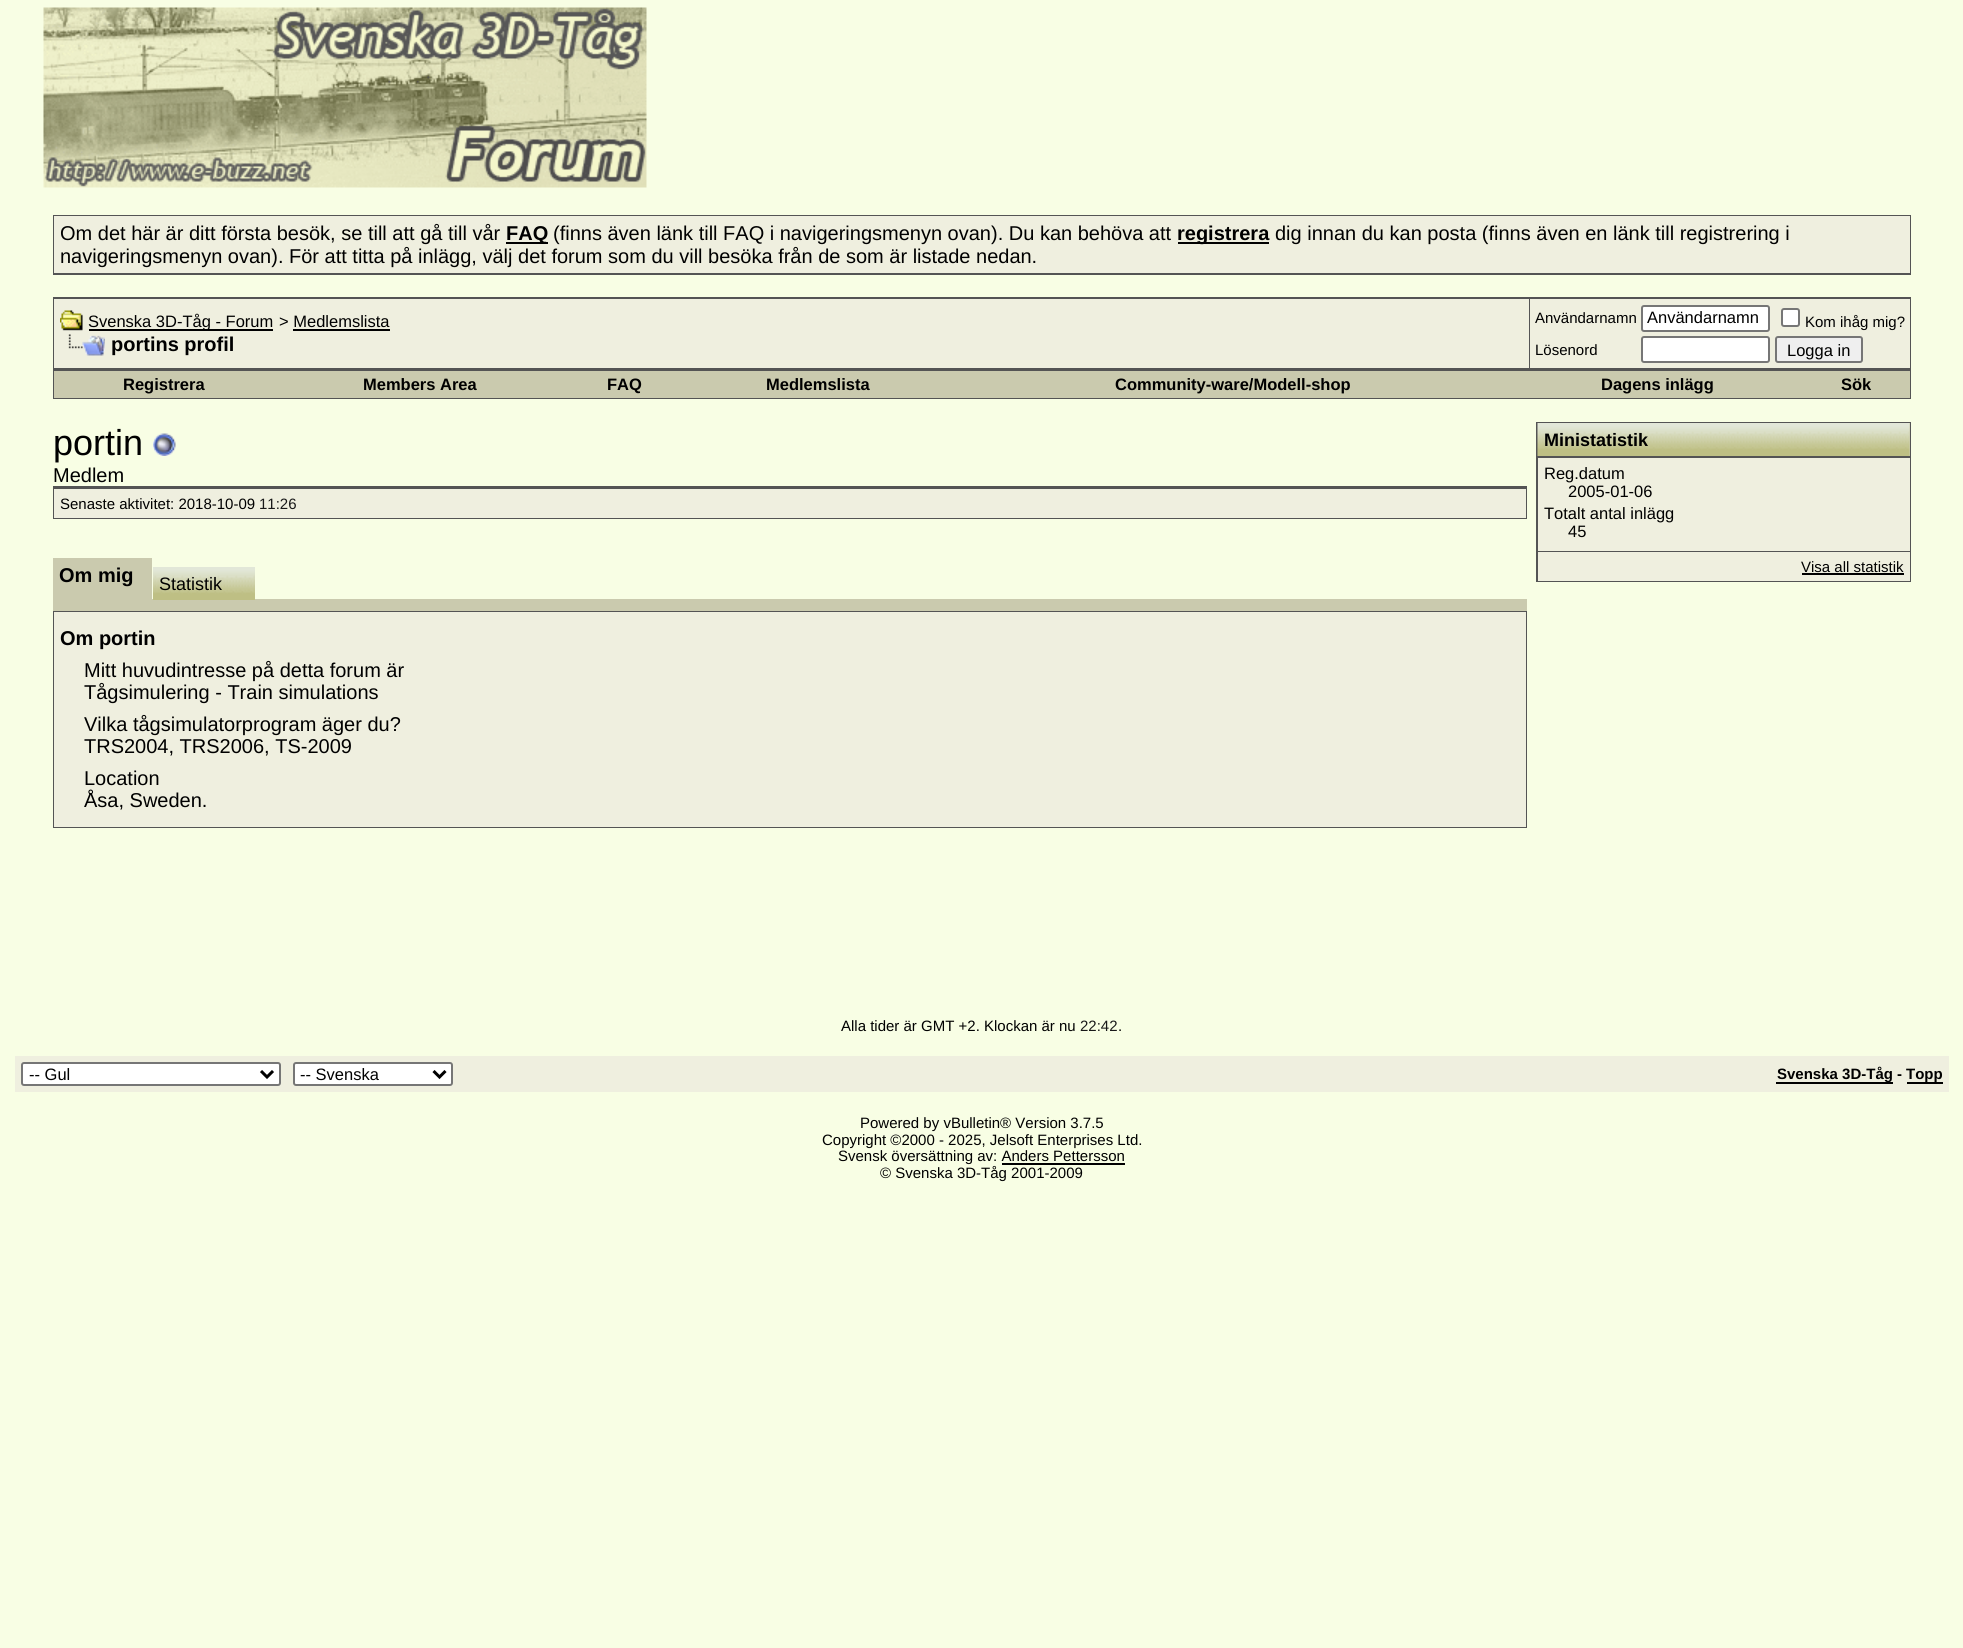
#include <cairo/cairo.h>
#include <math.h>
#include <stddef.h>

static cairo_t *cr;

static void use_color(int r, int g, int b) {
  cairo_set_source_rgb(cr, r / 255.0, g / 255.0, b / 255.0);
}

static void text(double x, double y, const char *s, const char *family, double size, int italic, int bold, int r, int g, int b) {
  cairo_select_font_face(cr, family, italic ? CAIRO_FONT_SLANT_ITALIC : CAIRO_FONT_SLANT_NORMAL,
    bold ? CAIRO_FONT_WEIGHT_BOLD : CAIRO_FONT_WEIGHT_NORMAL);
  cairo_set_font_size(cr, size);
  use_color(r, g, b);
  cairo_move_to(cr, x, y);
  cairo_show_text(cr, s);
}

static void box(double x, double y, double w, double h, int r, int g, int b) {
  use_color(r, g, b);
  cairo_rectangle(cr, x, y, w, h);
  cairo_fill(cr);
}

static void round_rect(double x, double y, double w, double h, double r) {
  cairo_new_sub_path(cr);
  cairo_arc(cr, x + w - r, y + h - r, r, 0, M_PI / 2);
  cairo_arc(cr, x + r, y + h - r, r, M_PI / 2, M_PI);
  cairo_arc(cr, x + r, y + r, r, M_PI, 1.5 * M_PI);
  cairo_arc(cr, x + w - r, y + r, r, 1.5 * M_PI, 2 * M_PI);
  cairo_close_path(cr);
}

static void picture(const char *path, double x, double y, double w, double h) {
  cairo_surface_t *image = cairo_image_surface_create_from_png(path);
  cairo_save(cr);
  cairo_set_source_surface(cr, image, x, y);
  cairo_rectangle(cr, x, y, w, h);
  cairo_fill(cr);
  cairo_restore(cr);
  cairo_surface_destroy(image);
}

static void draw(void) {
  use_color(248, 254, 228);
  cairo_paint(cr);
  picture("img_01.png", 43, 7, 604, 181);
  box(53, 215, 1858, 60, 84, 84, 84);
  box(54, 216, 1856, 57, 239, 239, 223);
  box(506, 242, 42, 2, 0, 0, 0);
  box(1178, 242, 91, 2, 0, 0, 0);
  box(53, 297, 1858, 102, 84, 84, 84);
  box(54, 299, 1475, 69, 239, 239, 223);
  picture("img_02.png", 60, 310, 23, 21);
  box(89, 329, 184, 2, 0, 0, 0);
  box(293, 329, 97, 2, 0, 0, 0);
  picture("img_03.png", 68, 334, 37, 22);
  box(1530, 299, 380, 69, 239, 239, 223);
  use_color(255, 255, 255);
  round_rect(1642, 306, 127, 25, 2);
  cairo_fill_preserve(cr);
  use_color(118, 118, 118);
  cairo_stroke(cr);
  use_color(255, 255, 255);
  round_rect(1782, 309, 17, 17, 2);
  cairo_fill_preserve(cr);
  use_color(118, 118, 118);
  cairo_stroke(cr);
  use_color(255, 255, 255);
  round_rect(1642, 337, 127, 25, 2);
  cairo_fill_preserve(cr);
  use_color(118, 118, 118);
  cairo_stroke(cr);
  use_color(239, 239, 239);
  round_rect(1776, 337, 86, 25, 2);
  cairo_fill_preserve(cr);
  use_color(118, 118, 118);
  cairo_stroke(cr);
  box(54, 371, 1856, 27, 202, 202, 174);
  picture("img_04.png", 153, 433, 23, 23);
  box(53, 486, 1474, 33, 84, 84, 84);
  box(54, 489, 1472, 29, 239, 239, 223);
  box(53, 558, 99, 41, 202, 202, 174);
  box(53, 599, 1474, 12, 202, 202, 174);
  picture("img_05.png", 153, 567, 102, 33);
  box(53, 611, 1474, 217, 84, 84, 84);
  box(54, 612, 1472, 215, 239, 239, 223);
  box(1536, 422, 375, 160, 84, 84, 84);
  box(1909, 423, 1, 33, 202, 202, 174);
  picture("img_06.png", 1537, 423, 373, 33);
  box(1538, 458, 372, 93, 239, 239, 223);
  box(1538, 552, 372, 29, 239, 239, 223);
  box(1802, 573, 102, 2, 0, 0, 0);
  box(15, 1056, 1934, 36, 239, 239, 223);
  use_color(255, 255, 255);
  round_rect(22, 1063, 258, 22, 2);
  cairo_fill_preserve(cr);
  use_color(118, 118, 118);
  cairo_stroke(cr);
  cairo_new_path(cr);
  cairo_move_to(cr, 261, 1071);
  cairo_line_to(cr, 267, 1077);
  cairo_line_to(cr, 273, 1071);
  use_color(0, 0, 0);
  cairo_set_line_width(cr, 3);
  cairo_stroke(cr);
  use_color(255, 255, 255);
  round_rect(294, 1063, 158, 22, 2);
  cairo_fill_preserve(cr);
  use_color(118, 118, 118);
  cairo_set_line_width(cr, 2);
  cairo_stroke(cr);
  cairo_new_path(cr);
  cairo_move_to(cr, 433.5, 1071);
  cairo_line_to(cr, 439.5, 1077);
  cairo_line_to(cr, 445.5, 1071);
  use_color(0, 0, 0);
  cairo_set_line_width(cr, 3);
  cairo_stroke(cr);
  box(1776, 1082, 117, 2, 0, 0, 0);
  box(1907, 1082, 36, 2, 0, 0, 0);
  box(1002, 1163, 123, 2, 0, 0, 0);
  text(60, 240, "Om det här är ditt första besök, se till att gå till vår", "Liberation Sans", 20, 0, 0, 0, 0, 0);
  text(506, 240, "FAQ", "Liberation Sans", 20, 0, 1, 0, 0, 0);
  text(553, 240, "(finns även länk till FAQ i navigeringsmenyn ovan). Du kan behöva att", "Liberation Sans", 20, 0, 0, 0, 0, 0);
  text(1177, 240, "registrera", "Liberation Sans", 20, 0, 1, 0, 0, 0);
  text(1275, 240, "dig innan du kan posta (finns även en länk till registrering i", "Liberation Sans", 20, 0, 0, 0, 0, 0);
  text(60, 263, "navigeringsmenyn ovan). För att titta på inlägg, välj det forum som du vill besöka från de som är listade nedan.", "Liberation Sans", 20, 0, 0, 0, 0, 0);
  text(88, 327, "Svenska 3D-Tåg - Forum", "Liberation Sans", 16.5, 0, 0, 0, 0, 0);
  text(279, 327, "> Medlemslista", "Liberation Sans", 16.5, 0, 0, 0, 0, 0);
  text(111, 351, "portins profil", "Liberation Sans", 20, 0, 1, 0, 0, 0);
  text(1535, 323, "Användarnamn", "Liberation Sans", 15, 0, 0, 0, 0, 0);
  text(1647, 323, "Användarnamn", "Liberation Sans", 16.5, 0, 0, 0, 0, 0);
  text(1805, 327, "Kom ihåg mig?", "Liberation Sans", 15, 0, 0, 0, 0, 0);
  text(1535, 355, "Lösenord", "Liberation Sans", 15, 0, 0, 0, 0, 0);
  text(1787, 356, "Logga in", "Liberation Sans", 16.5, 0, 0, 0, 0, 0);
  text(123, 390, "Registrera", "Liberation Sans", 16.5, 0, 1, 0, 0, 0);
  text(363, 390, "Members Area", "Liberation Sans", 16.5, 0, 1, 0, 0, 0);
  text(607, 390, "FAQ", "Liberation Sans", 16.5, 0, 1, 0, 0, 0);
  text(766, 390, "Medlemslista", "Liberation Sans", 16.5, 0, 1, 0, 0, 0);
  text(1115, 390, "Community-ware/Modell-shop", "Liberation Sans", 16.5, 0, 1, 0, 0, 0);
  text(1601, 390, "Dagens inlägg", "Liberation Sans", 16.5, 0, 1, 0, 0, 0);
  text(1841, 390, "Sök", "Liberation Sans", 16.5, 0, 1, 0, 0, 0);
  text(53, 455, "portin", "Liberation Sans", 36, 0, 0, 0, 0, 0);
  text(53, 482, "Medlem", "Liberation Sans", 20, 0, 0, 0, 0, 0);
  text(60, 509, "Senaste aktivitet: 2018-10-09", "Liberation Sans", 15, 0, 0, 0, 0, 0);
  text(259, 509, "11:26", "Liberation Sans", 15, 0, 0, 24, 24, 24);
  text(59, 582, "Om mig", "Liberation Sans", 20, 0, 1, 0, 0, 0);
  text(159, 590, "Statistik", "Liberation Sans", 18, 0, 0, 0, 0, 0);
  text(60, 645, "Om portin", "Liberation Sans", 20, 0, 1, 0, 0, 0);
  text(84, 677, "Mitt huvudintresse på detta forum är", "Liberation Sans", 20, 0, 0, 0, 0, 0);
  text(84, 699, "Tågsimulering - Train simulations", "Liberation Sans", 20, 0, 0, 0, 0, 0);
  text(84, 731, "Vilka tågsimulatorprogram äger du?", "Liberation Sans", 20, 0, 0, 0, 0, 0);
  text(84, 753, "TRS2004, TRS2006, TS-2009", "Liberation Sans", 20, 0, 0, 0, 0, 0);
  text(84, 785, "Location", "Liberation Sans", 20, 0, 0, 0, 0, 0);
  text(84, 807, "Åsa, Sweden.", "Liberation Sans", 20, 0, 0, 0, 0, 0);
  text(1544, 446, "Ministatistik", "Liberation Sans", 18, 0, 1, 0, 0, 0);
  text(1544, 479, "Reg.datum", "Liberation Sans", 16.5, 0, 0, 0, 0, 0);
  text(1568, 497, "2005-01-06", "Liberation Sans", 16.5, 0, 0, 0, 0, 0);
  text(1544, 519, "Totalt antal inlägg", "Liberation Sans", 16.5, 0, 0, 0, 0, 0);
  text(1568, 537, "45", "Liberation Sans", 16.5, 0, 0, 0, 0, 0);
  text(1801, 572, "Visa all statistik", "Liberation Sans", 15, 0, 0, 0, 0, 0);
  text(841, 1031, "Alla tider är GMT +2. Klockan är nu", "Liberation Sans", 15, 0, 0, 0, 0, 0);
  text(1080, 1031, "22:42", "Liberation Sans", 15, 0, 0, 24, 24, 24);
  text(1118, 1031, ".", "Liberation Sans", 15, 0, 0, 0, 0, 0);
  text(29, 1080, "-- Gul", "Liberation Sans", 16.5, 0, 0, 0, 0, 0);
  text(300, 1080, "-- Svenska", "Liberation Sans", 16.5, 0, 0, 0, 0, 0);
  text(1777, 1079, "Svenska 3D-Tåg -", "Liberation Sans", 15, 0, 1, 0, 0, 0);
  text(1906, 1079, "Topp", "Liberation Sans", 15, 0, 1, 0, 0, 0);
  text(860, 1128, "Powered by vBulletin® Version 3.7.5", "Liberation Sans", 15, 0, 0, 0, 0, 0);
  text(822, 1145, "Copyright ©2000 - 2025, Jelsoft Enterprises Ltd.", "Liberation Sans", 15, 0, 0, 0, 0, 0);
  text(838, 1161, "Svensk översättning av: Anders Pettersson", "Liberation Sans", 15, 0, 0, 0, 0, 0);
  text(880, 1178, "© Svenska 3D-Tåg 2001-2009", "Liberation Sans", 15, 0, 0, 0, 0, 0);
}

int main(void) {
  cairo_surface_t *surface = cairo_image_surface_create(CAIRO_FORMAT_RGB24, 1963, 1648);
  cr = cairo_create(surface);
  cairo_font_options_t *options = cairo_font_options_create();
  cairo_font_options_set_hint_metrics(options, CAIRO_HINT_METRICS_OFF);
  cairo_font_options_set_hint_style(options, CAIRO_HINT_STYLE_NONE);
  cairo_set_font_options(cr, options);
  cairo_set_miter_limit(cr, 4);
  draw();
  cairo_surface_write_to_png(surface, "out.png");
  cairo_font_options_destroy(options);
  cairo_destroy(cr);
  cairo_surface_destroy(surface);
  return 0;
}
